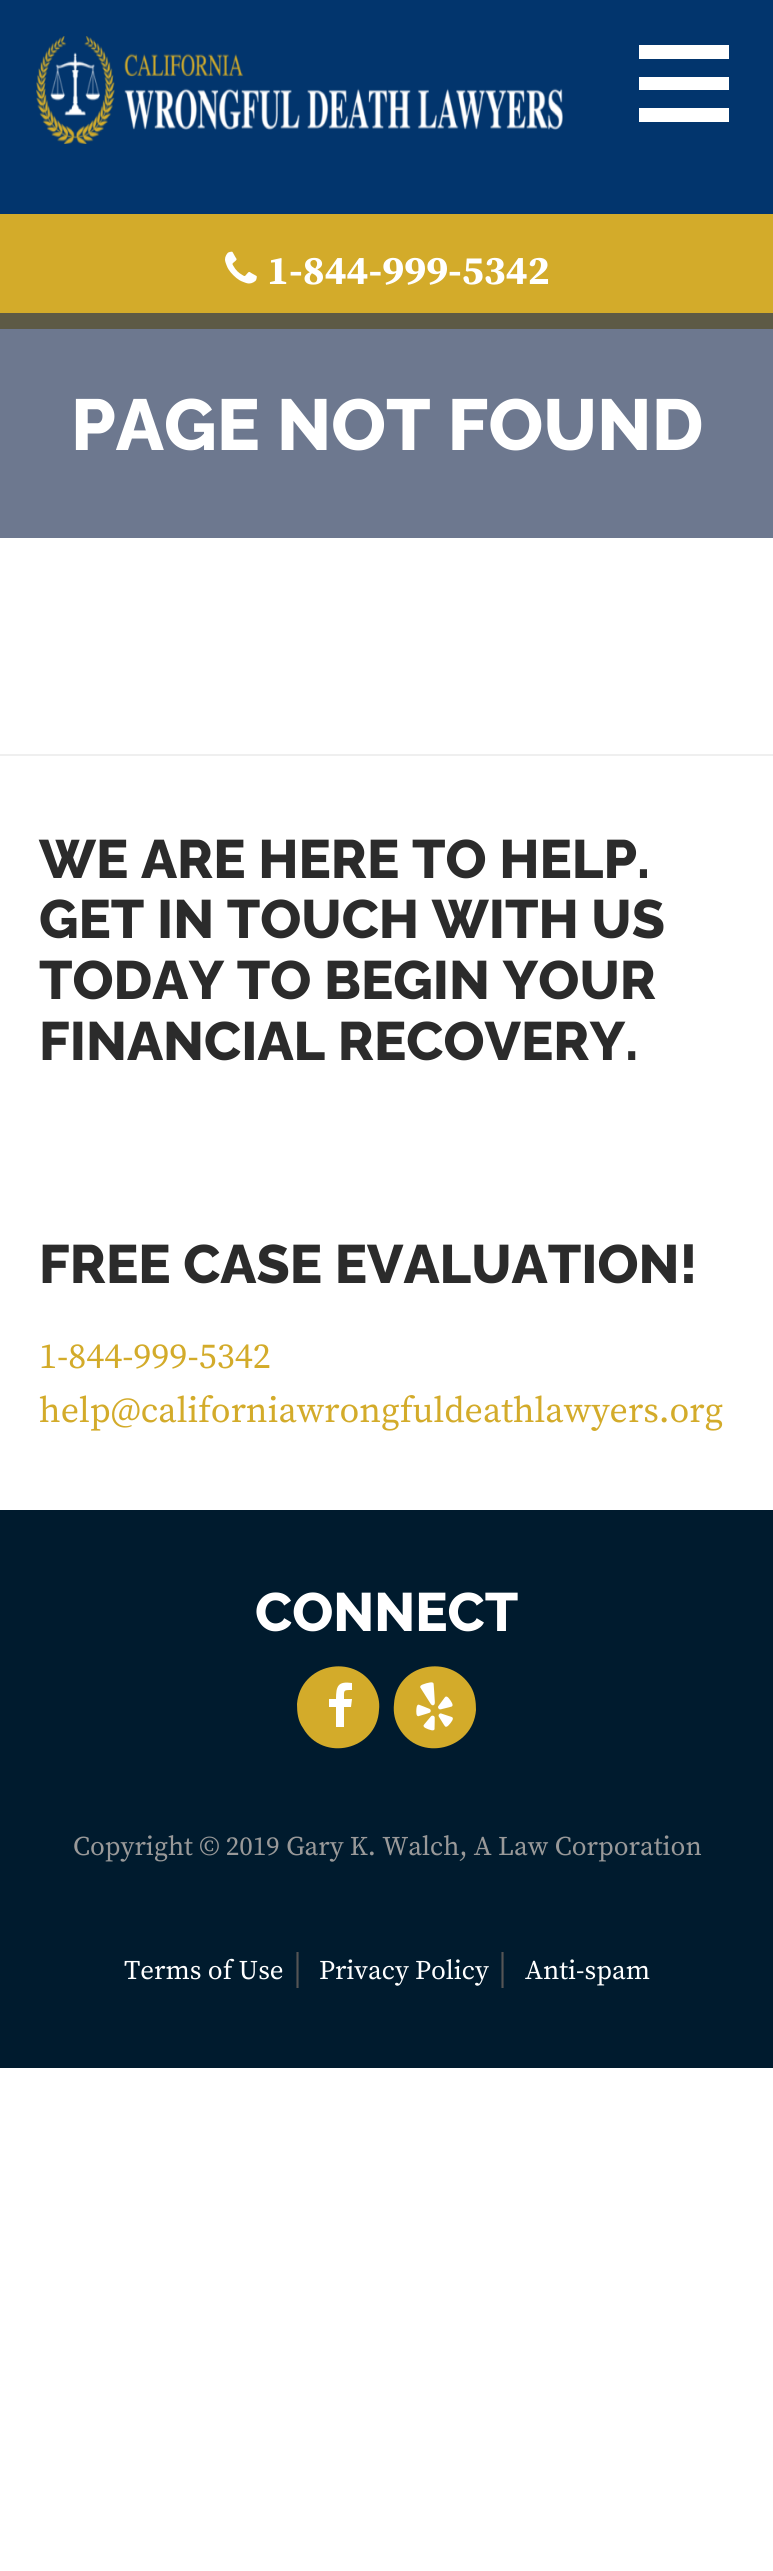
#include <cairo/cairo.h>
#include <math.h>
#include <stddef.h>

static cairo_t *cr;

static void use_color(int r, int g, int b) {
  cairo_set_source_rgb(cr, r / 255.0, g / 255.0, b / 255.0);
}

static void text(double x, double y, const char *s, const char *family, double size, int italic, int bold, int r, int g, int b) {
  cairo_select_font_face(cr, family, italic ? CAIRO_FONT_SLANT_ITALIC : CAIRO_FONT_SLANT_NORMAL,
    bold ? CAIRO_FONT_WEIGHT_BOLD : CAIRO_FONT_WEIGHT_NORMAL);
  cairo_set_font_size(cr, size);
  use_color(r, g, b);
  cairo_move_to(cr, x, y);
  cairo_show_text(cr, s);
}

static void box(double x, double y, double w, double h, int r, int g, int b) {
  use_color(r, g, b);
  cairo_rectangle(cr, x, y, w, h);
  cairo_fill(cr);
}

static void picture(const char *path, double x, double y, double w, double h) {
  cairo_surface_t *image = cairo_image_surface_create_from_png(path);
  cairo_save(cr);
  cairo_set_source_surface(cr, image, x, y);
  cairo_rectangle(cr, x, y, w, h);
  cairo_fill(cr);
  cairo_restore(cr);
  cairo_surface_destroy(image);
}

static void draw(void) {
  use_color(255, 255, 255);
  cairo_paint(cr);
  box(0, 329, 773, 209, 109, 120, 143);
  box(0, 0, 773, 214, 2, 53, 109);
  picture("img_01.png", 36, 36, 527, 108);
  box(639, 45, 90, 14, 255, 255, 255);
  box(639, 77, 90, 13, 255, 255, 255);
  box(639, 108, 90, 14, 255, 255, 255);
  box(0, 214, 773, 99, 211, 171, 42);
  box(0, 313, 773, 16, 93, 90, 69);
  picture("img_02.png", 225, 251, 32, 33);
  box(0, 754, 773, 2, 239, 239, 239);
  box(0, 1510, 773, 558, 0, 27, 46);
  use_color(211, 171, 42);
  cairo_new_path(cr);
  cairo_move_to(cr, 374, 1687);
  cairo_curve_to(cr, 378, 1694, 380, 1702, 379, 1710);
  cairo_curve_to(cr, 377, 1750, 323, 1763, 303, 1728);
  cairo_curve_to(cr, 298, 1721, 297, 1713, 297, 1704);
  cairo_curve_to(cr, 300, 1664, 354, 1652, 374, 1687);
  cairo_close_path(cr);
  cairo_fill(cr);
  use_color(255, 255, 255);
  cairo_new_path(cr);
  cairo_move_to(cr, 352, 1683);
  cairo_line_to(cr, 352, 1690);
  cairo_curve_to(cr, 343, 1690, 344, 1690, 344, 1699);
  cairo_line_to(cr, 352, 1699);
  cairo_line_to(cr, 351, 1707);
  cairo_line_to(cr, 344, 1707);
  cairo_line_to(cr, 344, 1727);
  cairo_line_to(cr, 336, 1727);
  cairo_line_to(cr, 336, 1707);
  cairo_line_to(cr, 329, 1707);
  cairo_line_to(cr, 329, 1699);
  cairo_line_to(cr, 336, 1699);
  cairo_curve_to(cr, 336, 1686, 338, 1681, 352, 1683);
  cairo_close_path(cr);
  cairo_fill(cr);
  use_color(211, 171, 42);
  cairo_new_path(cr);
  cairo_move_to(cr, 471, 1687);
  cairo_curve_to(cr, 475, 1694, 476, 1702, 476, 1710);
  cairo_curve_to(cr, 473, 1750, 419, 1763, 399, 1728);
  cairo_curve_to(cr, 395, 1721, 393, 1713, 394, 1704);
  cairo_curve_to(cr, 396, 1664, 450, 1652, 471, 1687);
  cairo_close_path(cr);
  cairo_fill(cr);
  picture("img_03.png", 416, 1682, 37, 49);
  text(267, 284, "1-844-999-5342", "Source Serif Pro", 40.5, 0, 1, 255, 255, 255);
  text(71, 450, "PAGE NOT FOUND", "Raleway ExtraBold", 72, 0, 0, 255, 255, 255);
  text(39, 878, "WE ARE HERE TO HELP.", "Raleway ExtraBold", 54, 0, 0, 43, 43, 43);
  text(39, 938, "GET IN TOUCH WITH US", "Raleway ExtraBold", 54, 0, 0, 43, 43, 43);
  text(39, 999, "TODAY TO BEGIN YOUR", "Raleway ExtraBold", 54, 0, 0, 43, 43, 43);
  text(39, 1060, "FINANCIAL RECOVERY.", "Raleway ExtraBold", 54, 0, 0, 43, 43, 43);
  text(39, 1283, "FREE CASE EVALUATION!", "Raleway ExtraBold", 54, 0, 0, 43, 43, 43);
  text(39, 1368, "1-844-999-5342", "Source Serif Pro", 36, 0, 0, 211, 171, 42);
  text(39, 1422, "help@californiawrongfuldeathlawyers.org", "Source Serif Pro", 36, 0, 0, 211, 171, 42);
  text(255, 1631, "CONNECT", "Raleway ExtraBold", 54, 0, 0, 255, 255, 255);
  text(73, 1855, "Copyright © 2019 Gary K. Walch, A Law Corporation", "Source Serif Pro", 27, 0, 0, 153, 153, 153);
  text(124, 1979, "Terms of Use", "Source Serif Pro", 27, 0, 0, 255, 255, 255);
  text(293, 1979, "|", "Source Serif Pro", 36, 0, 0, 85, 85, 85);
  text(319, 1979, "Privacy Policy", "Source Serif Pro", 27, 0, 0, 255, 255, 255);
  text(498, 1979, "|", "Source Serif Pro", 36, 0, 0, 85, 85, 85);
  text(525, 1979, "Anti-spam", "Source Serif Pro", 27, 0, 0, 255, 255, 255);
}

int main(void) {
  cairo_surface_t *surface = cairo_image_surface_create(CAIRO_FORMAT_RGB24, 773, 2571);
  cr = cairo_create(surface);
  cairo_font_options_t *options = cairo_font_options_create();
  cairo_font_options_set_hint_metrics(options, CAIRO_HINT_METRICS_OFF);
  cairo_font_options_set_hint_style(options, CAIRO_HINT_STYLE_NONE);
  cairo_set_font_options(cr, options);
  cairo_set_miter_limit(cr, 4);
  draw();
  cairo_surface_write_to_png(surface, "out.png");
  cairo_font_options_destroy(options);
  cairo_destroy(cr);
  cairo_surface_destroy(surface);
  return 0;
}
